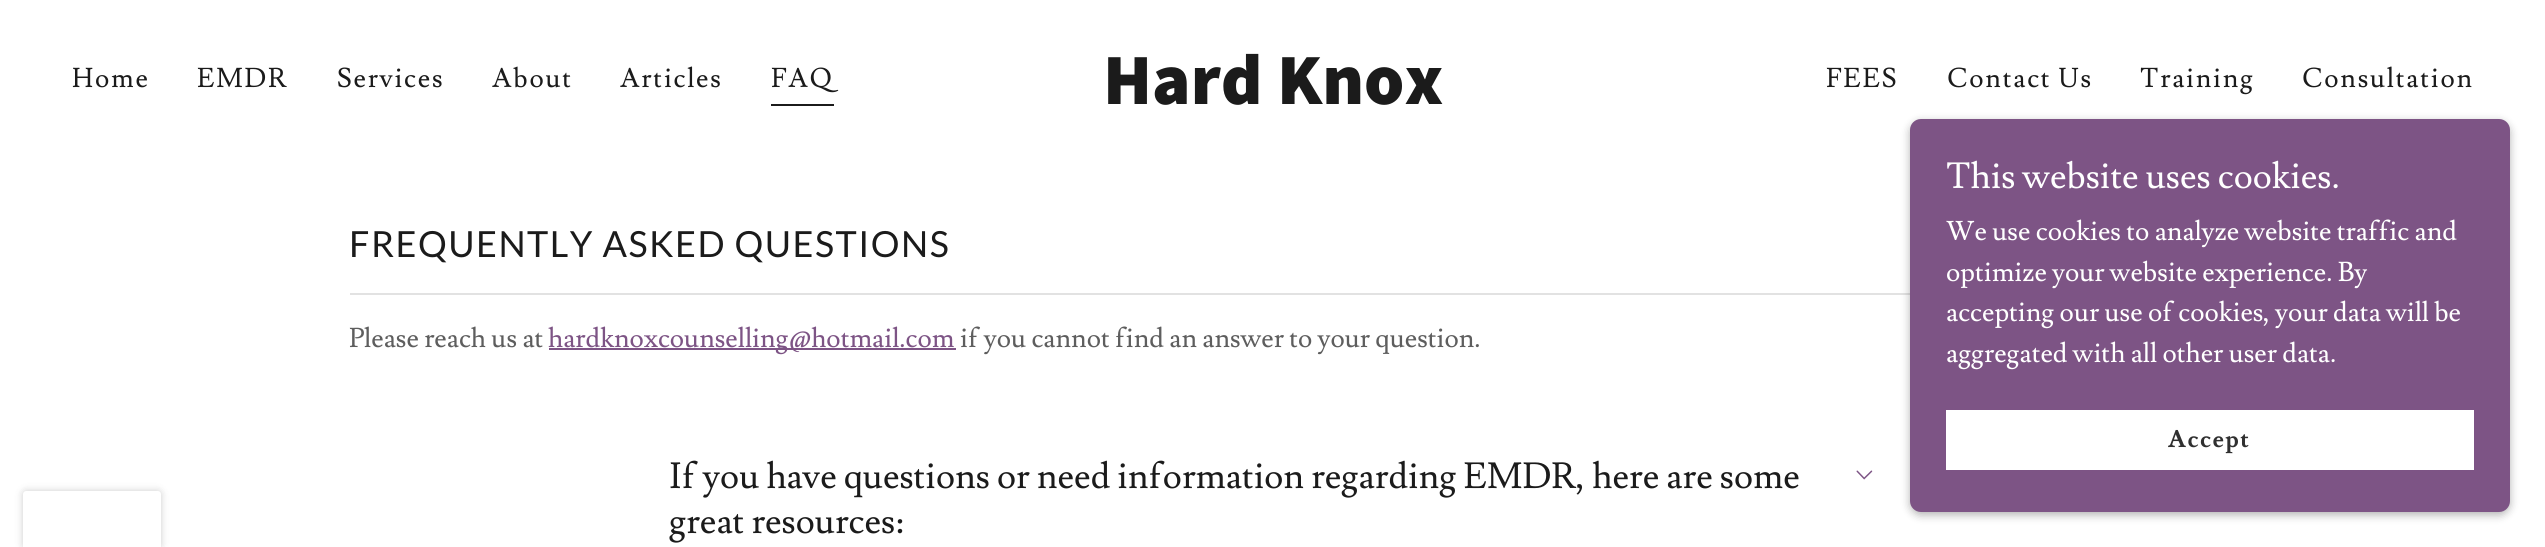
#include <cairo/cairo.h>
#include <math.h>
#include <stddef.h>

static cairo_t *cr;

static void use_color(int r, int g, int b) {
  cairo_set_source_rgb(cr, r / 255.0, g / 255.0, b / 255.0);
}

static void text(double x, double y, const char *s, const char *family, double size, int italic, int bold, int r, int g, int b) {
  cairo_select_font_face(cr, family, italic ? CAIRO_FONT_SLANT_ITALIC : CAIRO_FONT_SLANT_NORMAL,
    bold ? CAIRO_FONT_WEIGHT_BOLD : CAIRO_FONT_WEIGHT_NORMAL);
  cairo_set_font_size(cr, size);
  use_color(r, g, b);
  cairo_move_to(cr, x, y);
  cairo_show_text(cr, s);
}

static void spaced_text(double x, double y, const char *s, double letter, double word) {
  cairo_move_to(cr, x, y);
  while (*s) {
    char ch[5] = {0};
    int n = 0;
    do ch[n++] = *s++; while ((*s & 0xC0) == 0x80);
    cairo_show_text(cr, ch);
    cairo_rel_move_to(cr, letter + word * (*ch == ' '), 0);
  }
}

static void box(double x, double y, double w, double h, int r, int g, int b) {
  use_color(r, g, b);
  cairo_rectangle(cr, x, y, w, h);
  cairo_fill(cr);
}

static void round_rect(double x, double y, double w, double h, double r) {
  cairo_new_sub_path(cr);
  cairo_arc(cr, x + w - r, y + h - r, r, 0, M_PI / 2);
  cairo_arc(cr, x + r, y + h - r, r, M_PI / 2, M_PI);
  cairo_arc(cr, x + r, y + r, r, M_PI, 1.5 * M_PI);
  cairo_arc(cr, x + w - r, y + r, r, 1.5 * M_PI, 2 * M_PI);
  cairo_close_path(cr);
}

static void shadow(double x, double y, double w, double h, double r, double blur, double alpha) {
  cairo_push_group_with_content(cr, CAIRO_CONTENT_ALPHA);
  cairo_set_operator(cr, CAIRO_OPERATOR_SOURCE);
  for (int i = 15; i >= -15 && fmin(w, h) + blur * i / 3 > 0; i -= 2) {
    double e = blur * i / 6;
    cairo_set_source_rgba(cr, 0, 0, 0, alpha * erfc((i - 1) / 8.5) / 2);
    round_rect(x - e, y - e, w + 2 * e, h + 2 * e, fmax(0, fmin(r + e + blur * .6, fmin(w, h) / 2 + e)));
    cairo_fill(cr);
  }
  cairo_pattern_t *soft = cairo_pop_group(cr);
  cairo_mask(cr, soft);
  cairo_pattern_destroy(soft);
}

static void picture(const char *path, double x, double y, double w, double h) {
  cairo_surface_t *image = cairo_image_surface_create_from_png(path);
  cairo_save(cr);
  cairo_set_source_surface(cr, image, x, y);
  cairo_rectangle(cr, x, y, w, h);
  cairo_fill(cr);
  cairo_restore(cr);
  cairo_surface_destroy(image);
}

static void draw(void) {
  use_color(255, 255, 255);
  cairo_paint(cr);
  box(771, 104, 63, 2, 27, 27, 27);
  box(350, 293, 1560, 2, 226, 226, 226);
  box(549, 348, 407, 2, 125, 84, 133);
  picture("img_01.png", 1856, 470, 17, 10);
  use_color(0, 0, 0);
  shadow(1910, 122, 600, 393, 11, 4.5, 0.3);
  use_color(125, 84, 133);
  round_rect(1910, 119, 600, 393, 11);
  cairo_fill(cr);
  box(1946, 410, 528, 60, 255, 255, 255);
  use_color(0, 0, 0);
  shadow(23, 491, 138, 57, 3, 4, 0.2);
  use_color(255, 255, 255);
  cairo_new_path(cr);
  cairo_move_to(cr, 26, 491);
  cairo_line_to(cr, 158, 491);
  cairo_curve_to(cr, 159.5, 491, 161, 492.5, 161, 494);
  cairo_line_to(cr, 161, 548);
  cairo_line_to(cr, 23, 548);
  cairo_line_to(cr, 23, 494);
  cairo_curve_to(cr, 23, 492.5, 24.5, 491, 26, 491);
  cairo_close_path(cr);
  cairo_fill(cr);
  cairo_select_font_face(cr, "Lusitana", CAIRO_FONT_SLANT_NORMAL, CAIRO_FONT_WEIGHT_NORMAL);
  cairo_set_font_size(cr, 27);
  use_color(27, 27, 27);
  spaced_text(72, 87, "Home", 1.75, 0);
  spaced_text(197, 87, "EMDR", 1.75, 0);
  spaced_text(337, 87, "Services", 1.75, 0);
  spaced_text(492, 87, "About", 1.75, 0);
  spaced_text(620, 87, "Articles", 1.75, 0);
  spaced_text(771, 87, "FAQ", 1.75, 0);
  text(1103, 104, "Hard Knox", "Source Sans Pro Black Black", 72, 0, 0, 27, 27, 27);
  cairo_select_font_face(cr, "Lusitana", CAIRO_FONT_SLANT_NORMAL, CAIRO_FONT_WEIGHT_NORMAL);
  cairo_set_font_size(cr, 27);
  spaced_text(1826, 87, "FEES", 1.75, 0);
  spaced_text(1947, 87, "Contact Us", 1.75, 0);
  spaced_text(2140, 87, "Training", 1.75, 0);
  spaced_text(2302, 87, "Consultation", 1.75, 0);
  cairo_select_font_face(cr, "Lato", CAIRO_FONT_SLANT_NORMAL, CAIRO_FONT_WEIGHT_NORMAL);
  cairo_set_font_size(cr, 36);
  spaced_text(349, 257, "FREQUENTLY ASKED QUESTIONS", 1.5, 0);
  text(349, 347, "Please reach us at", "Lusitana", 27, 0, 0, 94, 94, 94);
  text(548, 347, "hardknoxcounselling@hotmail.com", "Lusitana", 27, 0, 0, 125, 84, 133);
  text(960, 347, "if you cannot find an answer to your question.", "Lusitana", 27, 0, 0, 94, 94, 94);
  text(669, 488, "If you have questions or need information regarding EMDR, here are some", "Lusitana", 36, 0, 0, 27, 27, 27);
  text(669, 533, "great resources:", "Lusitana", 36, 0, 0, 27, 27, 27);
  text(1946, 188, "This website uses cookies.", "Lusitana", 36, 0, 0, 255, 255, 255);
  text(1946, 240, "We use cookies to analyze website traffic and", "Lusitana", 27, 0, 0, 255, 255, 255);
  text(1946, 281, "optimize your website experience. By", "Lusitana", 27, 0, 0, 255, 255, 255);
  text(1946, 321, "accepting our use of cookies, your data will be", "Lusitana", 27, 0, 0, 255, 255, 255);
  text(1946, 362, "aggregated with all other user data.", "Lusitana", 27, 0, 0, 255, 255, 255);
  cairo_select_font_face(cr, "Lusitana", CAIRO_FONT_SLANT_NORMAL, CAIRO_FONT_WEIGHT_BOLD);
  cairo_set_font_size(cr, 24);
  use_color(48, 48, 48);
  spaced_text(2168, 447, "Accept", 1.5, 0);
}

int main(void) {
  cairo_surface_t *surface = cairo_image_surface_create(CAIRO_FORMAT_RGB24, 2545, 547);
  cr = cairo_create(surface);
  cairo_font_options_t *options = cairo_font_options_create();
  cairo_font_options_set_hint_metrics(options, CAIRO_HINT_METRICS_OFF);
  cairo_font_options_set_hint_style(options, CAIRO_HINT_STYLE_NONE);
  cairo_set_font_options(cr, options);
  cairo_set_miter_limit(cr, 4);
  draw();
  cairo_surface_write_to_png(surface, "out.png");
  cairo_font_options_destroy(options);
  cairo_destroy(cr);
  cairo_surface_destroy(surface);
  return 0;
}
